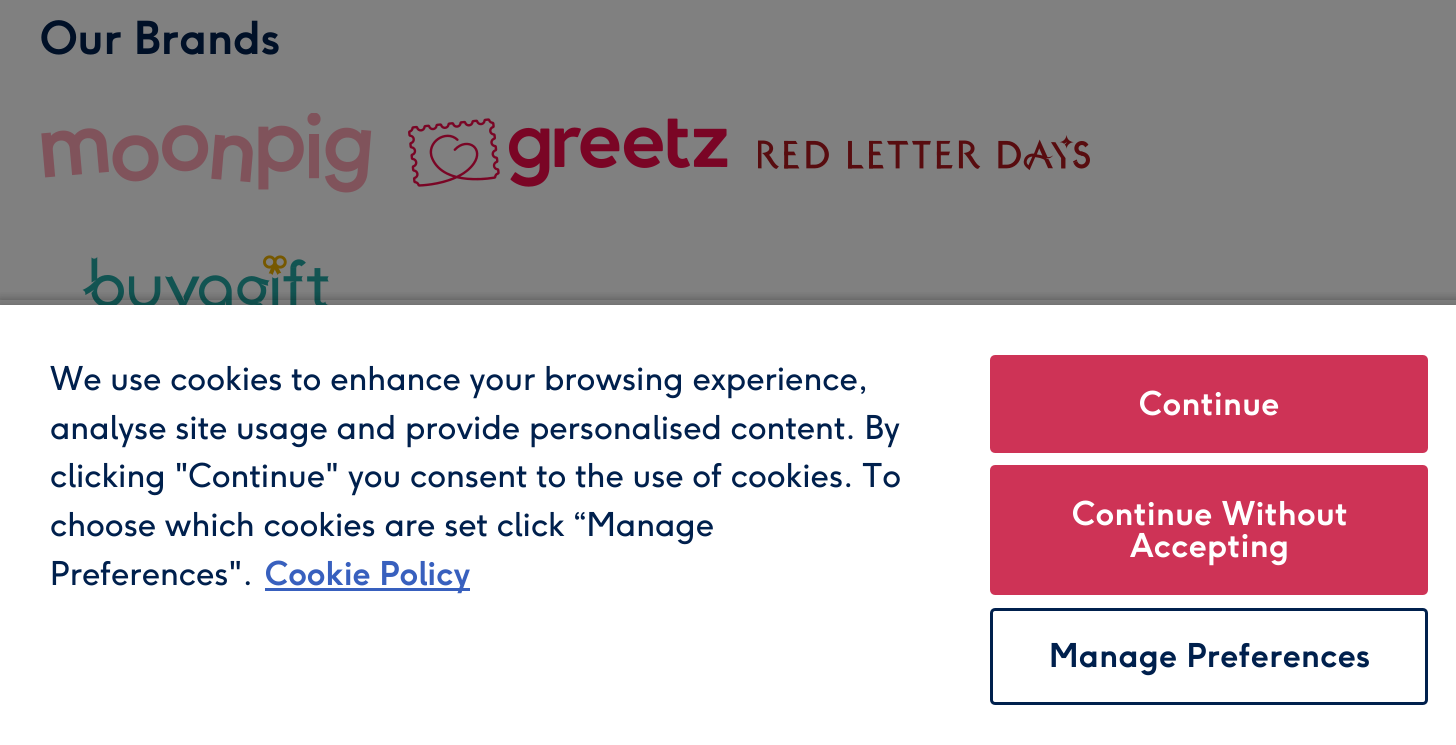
#include <cairo/cairo.h>
#include <math.h>
#include <stddef.h>

static cairo_t *cr;

static void use_color(int r, int g, int b) {
  cairo_set_source_rgb(cr, r / 255.0, g / 255.0, b / 255.0);
}

static void text(double x, double y, const char *s, const char *family, double size, int italic, int bold, int r, int g, int b) {
  cairo_select_font_face(cr, family, italic ? CAIRO_FONT_SLANT_ITALIC : CAIRO_FONT_SLANT_NORMAL,
    bold ? CAIRO_FONT_WEIGHT_BOLD : CAIRO_FONT_WEIGHT_NORMAL);
  cairo_set_font_size(cr, size);
  use_color(r, g, b);
  cairo_move_to(cr, x, y);
  cairo_show_text(cr, s);
}

static void spaced_text(double x, double y, const char *s, double letter, double word) {
  cairo_move_to(cr, x, y);
  while (*s) {
    char ch[5] = {0};
    int n = 0;
    do ch[n++] = *s++; while ((*s & 0xC0) == 0x80);
    cairo_show_text(cr, ch);
    cairo_rel_move_to(cr, letter + word * (*ch == ' '), 0);
  }
}

static void box(double x, double y, double w, double h, int r, int g, int b) {
  use_color(r, g, b);
  cairo_rectangle(cr, x, y, w, h);
  cairo_fill(cr);
}

static void round_rect(double x, double y, double w, double h, double r) {
  cairo_new_sub_path(cr);
  cairo_arc(cr, x + w - r, y + h - r, r, 0, M_PI / 2);
  cairo_arc(cr, x + r, y + h - r, r, M_PI / 2, M_PI);
  cairo_arc(cr, x + r, y + r, r, M_PI, 1.5 * M_PI);
  cairo_arc(cr, x + w - r, y + r, r, 1.5 * M_PI, 2 * M_PI);
  cairo_close_path(cr);
}

static void shadow(double x, double y, double w, double h, double r, double blur, double alpha) {
  cairo_push_group_with_content(cr, CAIRO_CONTENT_ALPHA);
  cairo_set_operator(cr, CAIRO_OPERATOR_SOURCE);
  for (int i = 15; i >= -15 && fmin(w, h) + blur * i / 3 > 0; i -= 2) {
    double e = blur * i / 6;
    cairo_set_source_rgba(cr, 0, 0, 0, alpha * erfc((i - 1) / 8.5) / 2);
    round_rect(x - e, y - e, w + 2 * e, h + 2 * e, fmax(0, fmin(r + e + blur * .6, fmin(w, h) / 2 + e)));
    cairo_fill(cr);
  }
  cairo_pattern_t *soft = cairo_pop_group(cr);
  cairo_mask(cr, soft);
  cairo_pattern_destroy(soft);
}

static void picture(const char *path, double x, double y, double w, double h) {
  cairo_surface_t *image = cairo_image_surface_create_from_png(path);
  cairo_save(cr);
  cairo_set_source_surface(cr, image, x, y);
  cairo_rectangle(cr, x, y, w, h);
  cairo_fill(cr);
  cairo_restore(cr);
  cairo_surface_destroy(image);
}

static void draw(void) {
  use_color(128, 128, 128);
  cairo_paint(cr);
  picture("img_01.png", 41, 113, 331, 80);
  picture("img_02.png", 408, 118, 320, 69);
  picture("img_03.png", 758, 135, 332, 36);
  picture("img_04.png", 82, 255, 247, 50);
  cairo_save(cr);
  cairo_rectangle(cr, 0, 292, 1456, 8);
  cairo_clip(cr);
  use_color(0, 0, 0);
  shadow(0, 300, 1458, 445, 0, 5, 0.35);
  cairo_restore(cr);
  cairo_save(cr);
  cairo_rectangle(cr, 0, 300, 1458, 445);
  cairo_clip(cr);
  use_color(0, 0, 0);
  shadow(0, 305, 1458, 440, 0, 5, 0.2);
  cairo_restore(cr);
  box(0, 305, 1456, 440, 255, 255, 255);
  box(265, 588, 205, 3, 56, 96, 190);
  use_color(206, 51, 86);
  round_rect(991.5, 356.5, 435, 95, 3.5);
  cairo_fill_preserve(cr);
  cairo_set_line_width(cr, 3);
  cairo_stroke(cr);
  round_rect(991.5, 466.5, 435, 127, 3.5);
  cairo_fill_preserve(cr);
  cairo_stroke(cr);
  round_rect(991.5, 609.5, 435, 94, 3.5);
  use_color(0, 32, 77);
  cairo_stroke(cr);
  text(40, 54, "Our Brands", "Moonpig", 45, 0, 1, 0, 16, 39);
  text(50, 390, "We use cookies to enhance your browsing experience,", "Moonpig", 32.5, 0, 0, 0, 32, 77);
  text(50, 439, "analyse site usage and provide personalised content. By", "Moonpig", 32.5, 0, 0, 0, 32, 77);
  text(50, 487, "clicking \"Continue\" you consent to the use of cookies. To", "Moonpig", 32.5, 0, 0, 0, 32, 77);
  text(50, 536, "choose which cookies are set click “Manage", "Moonpig", 32.5, 0, 0, 0, 32, 77);
  text(50, 585, "Preferences\".", "Moonpig", 32.5, 0, 0, 0, 32, 77);
  text(265, 585, "Cookie Policy", "Moonpig", 32.5, 0, 1, 56, 96, 190);
  use_color(255, 255, 255);
  spaced_text(1139, 415, "Continue", 0.3, 0);
  spaced_text(1072, 525, "Continue Without", 0.3, 0);
  spaced_text(1130, 557, "Accepting", 0.3, 0);
  use_color(0, 32, 77);
  spaced_text(1049, 667, "Manage Preferences", 0.3, 0);
}

int main(void) {
  cairo_surface_t *surface = cairo_image_surface_create(CAIRO_FORMAT_RGB24, 1456, 745);
  cr = cairo_create(surface);
  cairo_font_options_t *options = cairo_font_options_create();
  cairo_font_options_set_hint_metrics(options, CAIRO_HINT_METRICS_OFF);
  cairo_font_options_set_hint_style(options, CAIRO_HINT_STYLE_NONE);
  cairo_set_font_options(cr, options);
  cairo_set_miter_limit(cr, 4);
  draw();
  cairo_surface_write_to_png(surface, "out.png");
  cairo_font_options_destroy(options);
  cairo_destroy(cr);
  cairo_surface_destroy(surface);
  return 0;
}
